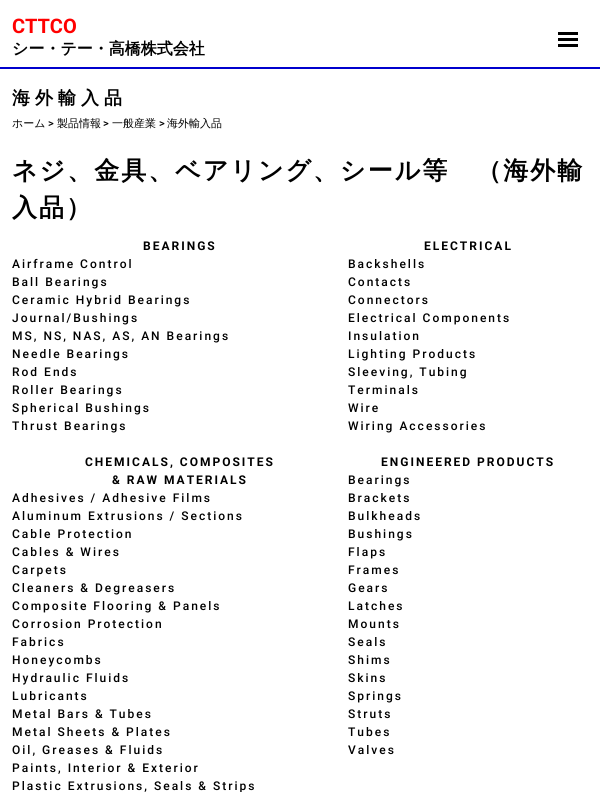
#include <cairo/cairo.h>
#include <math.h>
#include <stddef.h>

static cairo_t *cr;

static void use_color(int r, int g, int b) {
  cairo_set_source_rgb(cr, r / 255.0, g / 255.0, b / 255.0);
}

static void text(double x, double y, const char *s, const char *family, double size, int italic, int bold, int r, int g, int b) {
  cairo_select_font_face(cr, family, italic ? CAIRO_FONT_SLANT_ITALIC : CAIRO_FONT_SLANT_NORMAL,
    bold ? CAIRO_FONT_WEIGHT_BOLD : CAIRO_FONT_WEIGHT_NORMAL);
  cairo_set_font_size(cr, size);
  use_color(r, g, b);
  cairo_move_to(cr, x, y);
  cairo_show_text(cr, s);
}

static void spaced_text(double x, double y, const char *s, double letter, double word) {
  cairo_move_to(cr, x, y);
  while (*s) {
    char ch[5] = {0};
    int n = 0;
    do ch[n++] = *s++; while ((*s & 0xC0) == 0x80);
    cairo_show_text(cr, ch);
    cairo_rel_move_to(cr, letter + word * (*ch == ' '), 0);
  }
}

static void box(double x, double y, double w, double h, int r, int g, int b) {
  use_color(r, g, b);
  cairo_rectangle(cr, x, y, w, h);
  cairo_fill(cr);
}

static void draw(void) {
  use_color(255, 255, 255);
  cairo_paint(cr);
  box(0, 67, 600, 2, 0, 0, 205);
  box(558, 38, 20, 3, 0, 0, 0);
  box(558, 32, 20, 3, 0, 0, 0);
  box(558, 44, 20, 3, 0, 0, 0);
  text(12, 33, "CTTCO", "Roboto", 20, 0, 1, 255, 0, 0);
  text(12, 54, "シー・テー・高橋株式会社", "WenQuanYi Zen Hei", 16, 0, 1, 0, 0, 0);
  cairo_set_font_size(cr, 18);
  spaced_text(12, 104, "海外輸入品", 5, 0);
  text(12, 127, "ホーム", "WenQuanYi Zen Hei Medium", 11, 0, 0, 0, 0, 0);
  text(48, 127, ">", "Roboto Medium", 11, 0, 0, 0, 0, 0);
  text(57, 127, "製品情報", "WenQuanYi Zen Hei Medium", 11, 0, 0, 0, 0, 0);
  text(103, 127, ">", "Roboto Medium", 11, 0, 0, 0, 0, 0);
  text(112, 127, "一般産業", "WenQuanYi Zen Hei Medium", 11, 0, 0, 0, 0, 0);
  text(159, 127, ">", "Roboto Medium", 11, 0, 0, 0, 0, 0);
  text(167, 127, "海外輸入品", "WenQuanYi Zen Hei Medium", 11, 0, 0, 0, 0, 0);
  cairo_select_font_face(cr, "WenQuanYi Zen Hei", CAIRO_FONT_SLANT_NORMAL, CAIRO_FONT_WEIGHT_BOLD);
  cairo_set_font_size(cr, 25);
  spaced_text(12, 179, "ネジ、金具、ベアリング、シール等　（海外輸", 2, 0);
  spaced_text(12, 216, "入品）", 2, 0);
  cairo_select_font_face(cr, "Roboto", CAIRO_FONT_SLANT_NORMAL, CAIRO_FONT_WEIGHT_BOLD);
  cairo_set_font_size(cr, 12);
  spaced_text(143, 250, "BEARINGS", 2, 0);
  spaced_text(424, 250, "ELECTRICAL", 2, 0);
  cairo_select_font_face(cr, "Roboto Medium", CAIRO_FONT_SLANT_NORMAL, CAIRO_FONT_WEIGHT_NORMAL);
  spaced_text(12, 268, "Airframe Control", 2, 0);
  spaced_text(348, 268, "Backshells", 2, 0);
  spaced_text(12, 286, "Ball Bearings", 2, 0);
  spaced_text(348, 286, "Contacts", 2, 0);
  spaced_text(12, 304, "Ceramic Hybrid Bearings", 2, 0);
  spaced_text(348, 304, "Connectors", 2, 0);
  spaced_text(12, 322, "Journal/Bushings", 2, 0);
  spaced_text(348, 322, "Electrical Components", 2, 0);
  spaced_text(12, 340, "MS, NS, NAS, AS, AN Bearings", 2, 0);
  spaced_text(348, 340, "Insulation", 2, 0);
  spaced_text(12, 358, "Needle Bearings", 2, 0);
  spaced_text(348, 358, "Lighting Products", 2, 0);
  spaced_text(12, 376, "Rod Ends", 2, 0);
  spaced_text(348, 376, "Sleeving, Tubing", 2, 0);
  spaced_text(12, 394, "Roller Bearings", 2, 0);
  spaced_text(348, 394, "Terminals", 2, 0);
  spaced_text(12, 412, "Spherical Bushings", 2, 0);
  spaced_text(348, 412, "Wire", 2, 0);
  spaced_text(12, 430, "Thrust Bearings", 2, 0);
  spaced_text(348, 430, "Wiring Accessories", 2, 0);
  cairo_select_font_face(cr, "Roboto", CAIRO_FONT_SLANT_NORMAL, CAIRO_FONT_WEIGHT_BOLD);
  spaced_text(85, 466, "CHEMICALS, COMPOSITES", 2, 0);
  spaced_text(112, 484, "& RAW MATERIALS", 2, 0);
  spaced_text(381, 466, "ENGINEERED PRODUCTS", 2, 0);
  cairo_select_font_face(cr, "Roboto Medium", CAIRO_FONT_SLANT_NORMAL, CAIRO_FONT_WEIGHT_NORMAL);
  spaced_text(348, 484, "Bearings", 2, 0);
  spaced_text(12, 502, "Adhesives / Adhesive Films", 2, 0);
  spaced_text(348, 502, "Brackets", 2, 0);
  spaced_text(12, 520, "Aluminum Extrusions / Sections", 2, 0);
  spaced_text(348, 520, "Bulkheads", 2, 0);
  spaced_text(12, 538, "Cable Protection", 2, 0);
  spaced_text(348, 538, "Bushings", 2, 0);
  spaced_text(12, 556, "Cables & Wires", 2, 0);
  spaced_text(348, 556, "Flaps", 2, 0);
  spaced_text(12, 574, "Carpets", 2, 0);
  spaced_text(348, 574, "Frames", 2, 0);
  spaced_text(12, 592, "Cleaners & Degreasers", 2, 0);
  spaced_text(348, 592, "Gears", 2, 0);
  spaced_text(12, 610, "Composite Flooring & Panels", 2, 0);
  spaced_text(348, 610, "Latches", 2, 0);
  spaced_text(12, 628, "Corrosion Protection", 2, 0);
  spaced_text(348, 628, "Mounts", 2, 0);
  spaced_text(12, 646, "Fabrics", 2, 0);
  spaced_text(348, 646, "Seals", 2, 0);
  spaced_text(12, 664, "Honeycombs", 2, 0);
  spaced_text(348, 664, "Shims", 2, 0);
  spaced_text(12, 682, "Hydraulic Fluids", 2, 0);
  spaced_text(348, 682, "Skins", 2, 0);
  spaced_text(12, 700, "Lubricants", 2, 0);
  spaced_text(348, 700, "Springs", 2, 0);
  spaced_text(12, 718, "Metal Bars & Tubes", 2, 0);
  spaced_text(348, 718, "Struts", 2, 0);
  spaced_text(12, 736, "Metal Sheets & Plates", 2, 0);
  spaced_text(348, 736, "Tubes", 2, 0);
  spaced_text(12, 754, "Oil, Greases & Fluids", 2, 0);
  spaced_text(348, 754, "Valves", 2, 0);
  spaced_text(12, 772, "Paints, Interior & Exterior", 2, 0);
  spaced_text(12, 790, "Plastic Extrusions, Seals & Strips", 2, 0);
}

int main(void) {
  cairo_surface_t *surface = cairo_image_surface_create(CAIRO_FORMAT_RGB24, 600, 792);
  cr = cairo_create(surface);
  cairo_font_options_t *options = cairo_font_options_create();
  cairo_font_options_set_hint_metrics(options, CAIRO_HINT_METRICS_OFF);
  cairo_font_options_set_hint_style(options, CAIRO_HINT_STYLE_NONE);
  cairo_set_font_options(cr, options);
  cairo_set_miter_limit(cr, 4);
  draw();
  cairo_surface_write_to_png(surface, "out.png");
  cairo_font_options_destroy(options);
  cairo_destroy(cr);
  cairo_surface_destroy(surface);
  return 0;
}
